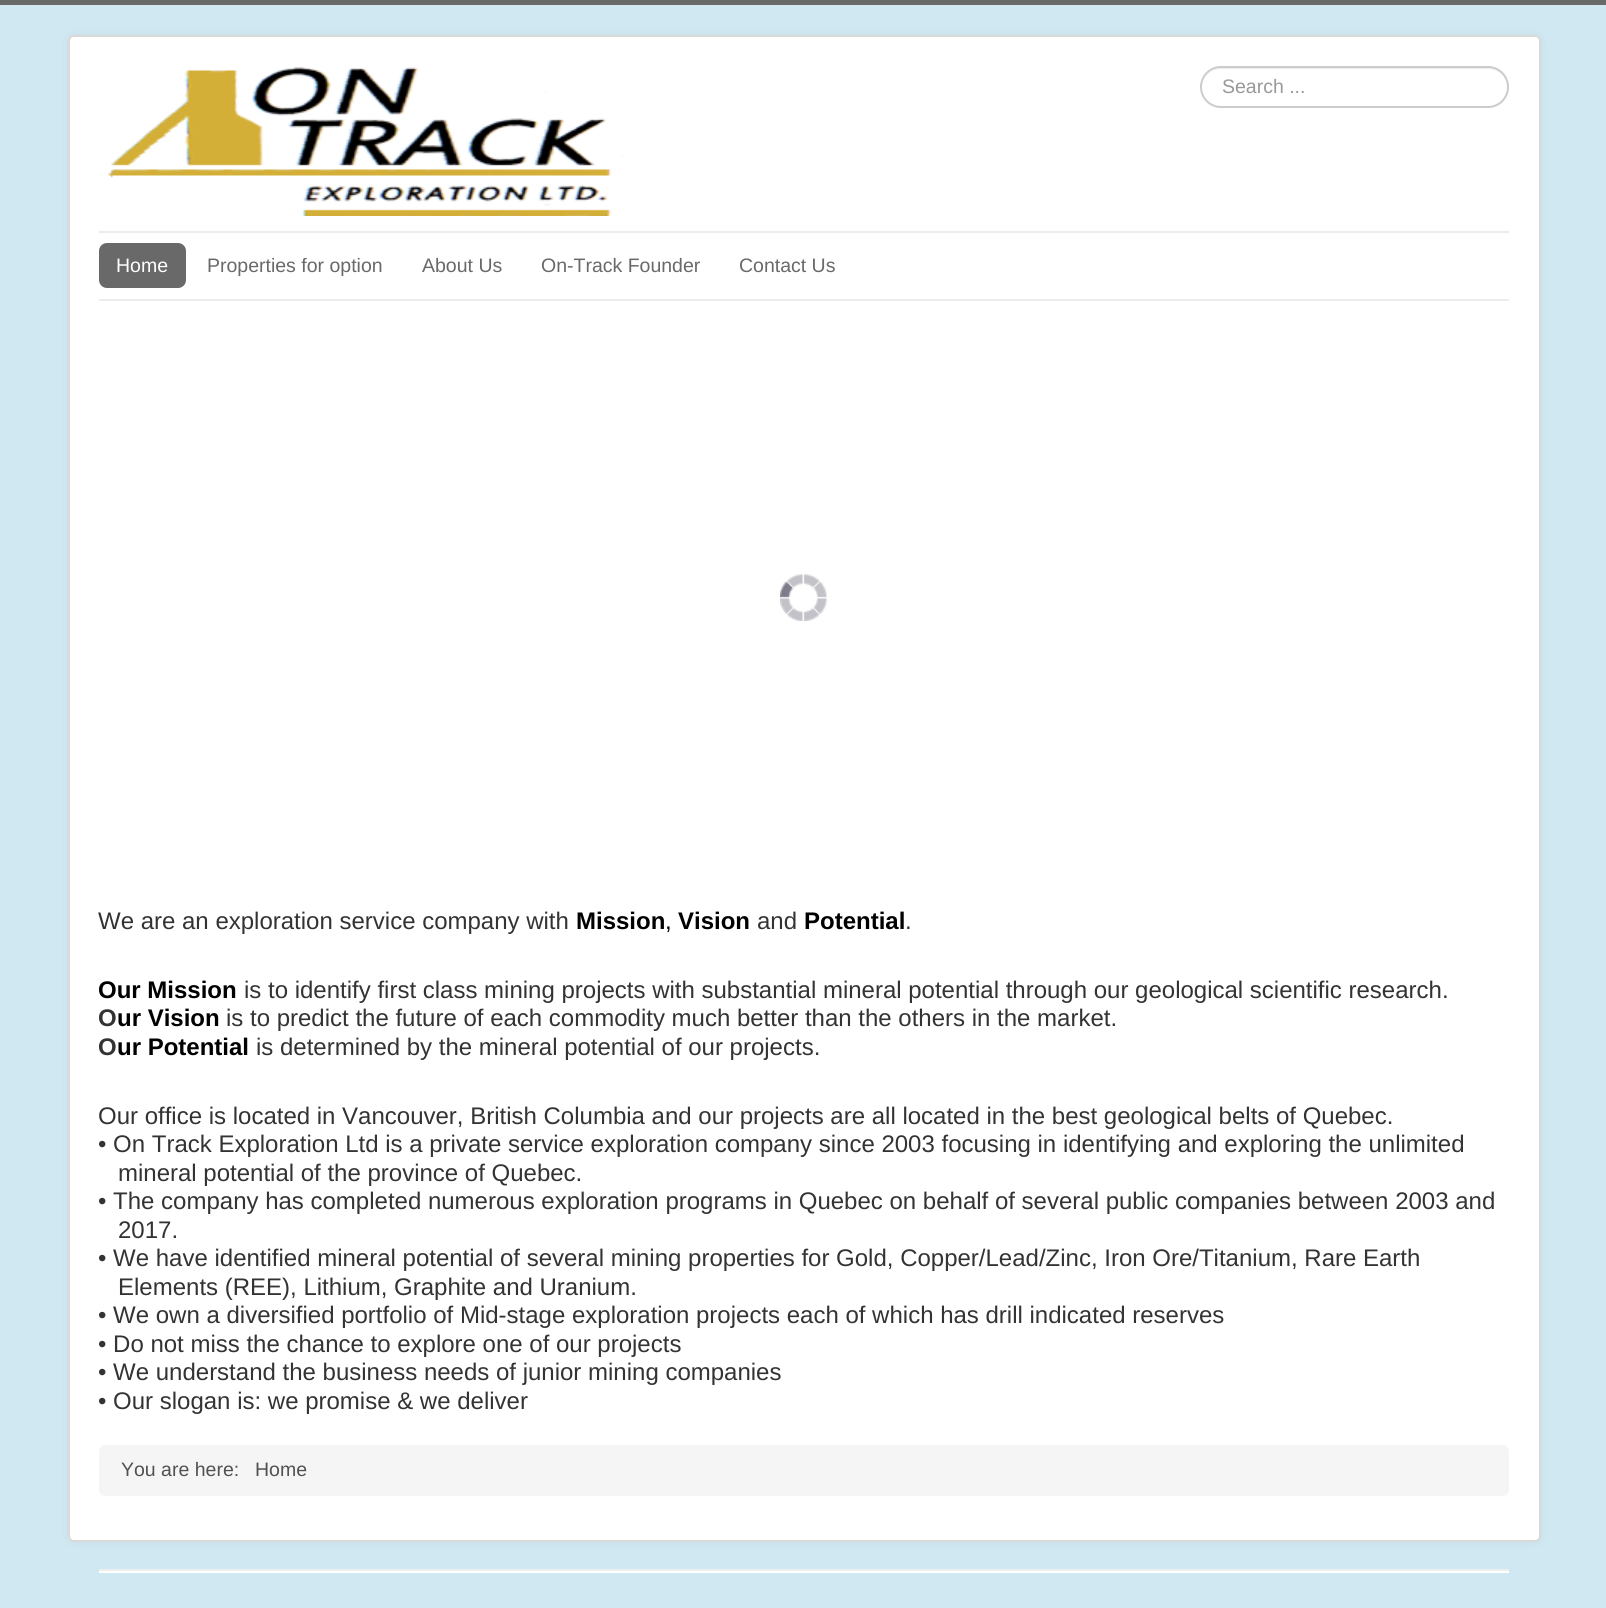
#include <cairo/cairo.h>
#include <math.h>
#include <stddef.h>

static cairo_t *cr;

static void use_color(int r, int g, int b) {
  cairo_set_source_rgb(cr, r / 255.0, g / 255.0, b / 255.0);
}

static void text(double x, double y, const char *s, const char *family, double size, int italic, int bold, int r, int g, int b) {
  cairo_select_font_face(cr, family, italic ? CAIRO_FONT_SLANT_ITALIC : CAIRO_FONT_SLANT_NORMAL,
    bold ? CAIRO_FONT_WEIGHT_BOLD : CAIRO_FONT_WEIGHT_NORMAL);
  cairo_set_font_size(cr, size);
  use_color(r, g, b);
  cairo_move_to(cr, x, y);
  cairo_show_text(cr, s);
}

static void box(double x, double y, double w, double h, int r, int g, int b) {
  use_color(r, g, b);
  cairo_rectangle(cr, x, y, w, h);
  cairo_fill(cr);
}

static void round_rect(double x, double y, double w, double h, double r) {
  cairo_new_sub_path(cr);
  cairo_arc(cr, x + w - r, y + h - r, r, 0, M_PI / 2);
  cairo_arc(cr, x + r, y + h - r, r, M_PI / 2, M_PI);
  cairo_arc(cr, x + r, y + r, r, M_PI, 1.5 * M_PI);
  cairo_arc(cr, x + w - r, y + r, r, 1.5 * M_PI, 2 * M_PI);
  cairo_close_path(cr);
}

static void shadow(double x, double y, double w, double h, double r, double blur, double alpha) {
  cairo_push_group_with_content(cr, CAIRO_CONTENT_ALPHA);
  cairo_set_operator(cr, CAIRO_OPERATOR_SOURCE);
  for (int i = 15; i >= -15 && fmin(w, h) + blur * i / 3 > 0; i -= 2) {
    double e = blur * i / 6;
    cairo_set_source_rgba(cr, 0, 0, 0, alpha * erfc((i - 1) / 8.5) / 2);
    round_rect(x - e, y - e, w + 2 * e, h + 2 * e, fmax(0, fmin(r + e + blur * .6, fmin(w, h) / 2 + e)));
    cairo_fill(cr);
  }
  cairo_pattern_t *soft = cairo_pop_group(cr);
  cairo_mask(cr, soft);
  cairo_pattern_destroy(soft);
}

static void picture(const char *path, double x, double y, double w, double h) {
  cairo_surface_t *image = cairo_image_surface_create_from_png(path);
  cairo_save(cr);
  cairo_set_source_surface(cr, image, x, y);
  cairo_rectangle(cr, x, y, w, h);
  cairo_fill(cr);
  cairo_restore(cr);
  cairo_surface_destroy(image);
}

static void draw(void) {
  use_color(208, 232, 242);
  cairo_paint(cr);
  box(0, 0, 1606, 5, 105, 105, 105);
  use_color(0, 0, 0);
  shadow(68, 35, 1473, 1507, 6, 4.5, 0.05);
  use_color(255, 255, 255);
  round_rect(68, 35, 1473, 1507, 6);
  cairo_fill(cr);
  round_rect(69, 36, 1471, 1505, 5);
  cairo_set_source_rgba(cr, 0, 0, 0, 0.15);
  cairo_stroke(cr);
  picture("img_01.png", 107, 67, 517, 149);
  use_color(236, 236, 236);
  cairo_new_path(cr);
  cairo_move_to(cr, 1221, 69);
  cairo_line_to(cr, 1488, 69);
  cairo_curve_to(cr, 1499, 69, 1508, 78, 1508, 88);
  cairo_curve_to(cr, 1508, 77, 1499, 68, 1488, 68);
  cairo_line_to(cr, 1222, 68);
  cairo_curve_to(cr, 1211, 68, 1202, 77, 1202, 88);
  cairo_curve_to(cr, 1202, 78, 1210, 69, 1221, 69);
  cairo_close_path(cr);
  cairo_fill(cr);
  round_rect(1201, 67, 307, 40, 20);
  use_color(204, 204, 204);
  cairo_stroke(cr);
  box(99, 231, 1410, 2, 236, 236, 236);
  box(99, 299, 1410, 2, 236, 236, 236);
  use_color(105, 105, 105);
  round_rect(99, 243, 87, 45, 8);
  cairo_fill(cr);
  picture("img_02.png", 780, 574, 47, 47);
  use_color(245, 245, 245);
  round_rect(99, 1445, 1410, 51, 6);
  cairo_fill(cr);
  box(99, 1569, 1410, 2, 238, 238, 238);
  box(99, 1571, 1410, 2, 255, 255, 255);
  text(1222, 93, "Search ...", "Liberation Sans", 19.5, 0, 0, 153, 153, 153);
  text(116, 272, "Home", "Liberation Sans", 19.5, 0, 0, 255, 255, 255);
  text(207, 272, "Properties for option", "Liberation Sans", 19.5, 0, 0, 105, 105, 105);
  text(422, 272, "About Us", "Liberation Sans", 19.5, 0, 0, 105, 105, 105);
  text(541, 272, "On-Track Founder", "Liberation Sans", 19.5, 0, 0, 105, 105, 105);
  text(739, 272, "Contact Us", "Liberation Sans", 19.5, 0, 0, 105, 105, 105);
  text(98, 929, "We are an exploration service company with", "Liberation Sans", 24, 0, 0, 51, 51, 51);
  text(576, 929, "Mission", "Liberation Sans", 24, 0, 1, 0, 0, 0);
  text(665, 929, ",", "Liberation Sans", 24, 0, 0, 0, 0, 0);
  text(678, 929, "Vision", "Liberation Sans", 24, 0, 1, 0, 0, 0);
  text(757, 929, "and", "Liberation Sans", 24, 0, 0, 51, 51, 51);
  text(804, 929, "Potential", "Liberation Sans", 24, 0, 1, 0, 0, 0);
  text(905, 929, ".", "Liberation Sans", 24, 0, 0, 51, 51, 51);
  text(98, 998, "Our Mission", "Liberation Sans", 24, 0, 1, 0, 0, 0);
  text(244, 998, "is to identify first class mining projects with substantial mineral potential through our geological scientific research.", "Liberation Sans", 24, 0, 0, 51, 51, 51);
  text(98, 1026, "O", "Liberation Sans", 24, 0, 1, 51, 51, 51);
  text(117, 1026, "ur Vision", "Liberation Sans", 24, 0, 1, 0, 0, 0);
  text(226, 1026, "is to predict the future of each commodity much better than the others in the market.", "Liberation Sans", 24, 0, 0, 51, 51, 51);
  text(98, 1055, "O", "Liberation Sans", 24, 0, 1, 51, 51, 51);
  text(117, 1055, "ur Potential", "Liberation Sans", 24, 0, 1, 0, 0, 0);
  text(256, 1055, "is determined by the mineral potential of our projects.", "Liberation Sans", 24, 0, 0, 51, 51, 51);
  text(98, 1124, "Our office is located in Vancouver, British Columbia and our projects are all located in the best geological belts of Quebec.", "Liberation Sans", 24, 0, 0, 51, 51, 51);
  text(98, 1152, "• On Track Exploration Ltd is a private service exploration company since 2003 focusing in identifying and exploring the unlimited", "Liberation Sans", 24, 0, 0, 51, 51, 51);
  text(118, 1181, "mineral potential of the province of Quebec.", "Liberation Sans", 24, 0, 0, 51, 51, 51);
  text(98, 1209, "• The company has completed numerous exploration programs in Quebec on behalf of several public companies between 2003 and", "Liberation Sans", 24, 0, 0, 51, 51, 51);
  text(118, 1238, "2017.", "Liberation Sans", 24, 0, 0, 51, 51, 51);
  text(98, 1266, "• We have identified mineral potential of several mining properties for Gold, Copper/Lead/Zinc, Iron Ore/Titanium, Rare Earth", "Liberation Sans", 24, 0, 0, 51, 51, 51);
  text(118, 1295, "Elements (REE), Lithium, Graphite and Uranium.", "Liberation Sans", 24, 0, 0, 51, 51, 51);
  text(98, 1323, "• We own a diversified portfolio of Mid-stage exploration projects each of which has drill indicated reserves", "Liberation Sans", 24, 0, 0, 51, 51, 51);
  text(98, 1352, "• Do not miss the chance to explore one of our projects", "Liberation Sans", 24, 0, 0, 51, 51, 51);
  text(98, 1380, "• We understand the business needs of junior mining companies", "Liberation Sans", 24, 0, 0, 51, 51, 51);
  text(98, 1409, "• Our slogan is: we promise & we deliver", "Liberation Sans", 24, 0, 0, 51, 51, 51);
  text(121, 1476, "You are here:", "Liberation Sans", 19.5, 0, 0, 81, 81, 81);
  text(255, 1476, "Home", "Liberation Sans", 19.5, 0, 0, 81, 81, 81);
}

int main(void) {
  cairo_surface_t *surface = cairo_image_surface_create(CAIRO_FORMAT_RGB24, 1606, 1608);
  cr = cairo_create(surface);
  cairo_font_options_t *options = cairo_font_options_create();
  cairo_font_options_set_hint_metrics(options, CAIRO_HINT_METRICS_OFF);
  cairo_font_options_set_hint_style(options, CAIRO_HINT_STYLE_NONE);
  cairo_set_font_options(cr, options);
  cairo_set_miter_limit(cr, 4);
  draw();
  cairo_surface_write_to_png(surface, "out.png");
  cairo_font_options_destroy(options);
  cairo_destroy(cr);
  cairo_surface_destroy(surface);
  return 0;
}
